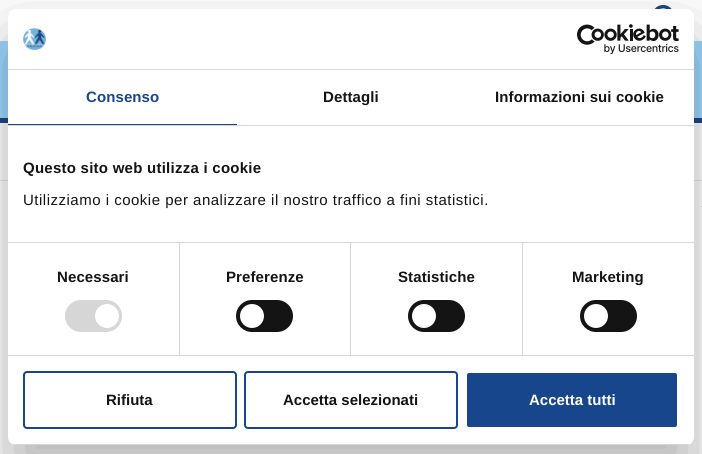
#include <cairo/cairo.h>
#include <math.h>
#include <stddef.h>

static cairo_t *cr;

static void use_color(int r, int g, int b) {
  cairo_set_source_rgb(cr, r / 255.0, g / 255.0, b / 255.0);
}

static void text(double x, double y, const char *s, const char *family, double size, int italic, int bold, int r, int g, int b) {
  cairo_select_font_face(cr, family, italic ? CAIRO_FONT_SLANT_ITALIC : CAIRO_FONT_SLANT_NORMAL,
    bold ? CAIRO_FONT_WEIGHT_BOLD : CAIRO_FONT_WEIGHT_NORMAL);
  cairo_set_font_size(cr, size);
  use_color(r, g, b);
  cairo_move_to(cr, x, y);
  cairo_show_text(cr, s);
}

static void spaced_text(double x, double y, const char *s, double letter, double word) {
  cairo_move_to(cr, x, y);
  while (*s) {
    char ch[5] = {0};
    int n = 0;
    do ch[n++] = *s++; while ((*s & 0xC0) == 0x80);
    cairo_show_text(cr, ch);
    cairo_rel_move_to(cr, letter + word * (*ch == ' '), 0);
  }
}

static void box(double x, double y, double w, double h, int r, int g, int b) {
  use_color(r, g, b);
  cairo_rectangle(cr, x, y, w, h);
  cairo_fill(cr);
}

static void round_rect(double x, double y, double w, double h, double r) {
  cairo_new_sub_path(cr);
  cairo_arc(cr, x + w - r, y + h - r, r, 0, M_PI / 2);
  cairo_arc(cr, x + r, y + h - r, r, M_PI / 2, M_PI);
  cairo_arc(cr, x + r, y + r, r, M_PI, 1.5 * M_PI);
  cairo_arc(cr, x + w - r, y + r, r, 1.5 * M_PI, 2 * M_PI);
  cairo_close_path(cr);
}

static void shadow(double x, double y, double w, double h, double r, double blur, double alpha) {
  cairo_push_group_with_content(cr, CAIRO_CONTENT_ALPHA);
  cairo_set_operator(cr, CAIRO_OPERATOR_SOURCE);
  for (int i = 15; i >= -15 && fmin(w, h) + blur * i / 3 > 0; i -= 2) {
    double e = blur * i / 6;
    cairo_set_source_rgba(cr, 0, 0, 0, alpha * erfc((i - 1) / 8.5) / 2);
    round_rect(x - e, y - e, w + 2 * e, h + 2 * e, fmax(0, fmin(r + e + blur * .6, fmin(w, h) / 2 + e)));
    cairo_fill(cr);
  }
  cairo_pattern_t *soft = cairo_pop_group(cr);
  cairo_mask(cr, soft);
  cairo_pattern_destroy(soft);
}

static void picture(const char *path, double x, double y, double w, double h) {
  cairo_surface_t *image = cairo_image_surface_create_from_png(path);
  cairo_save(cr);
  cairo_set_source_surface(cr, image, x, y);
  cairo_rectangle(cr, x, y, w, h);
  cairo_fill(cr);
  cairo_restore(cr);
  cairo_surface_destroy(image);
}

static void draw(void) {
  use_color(255, 255, 255);
  cairo_paint(cr);
  box(0, 41, 702, 77, 157, 217, 255);
  picture("img_01.png", 654, 5, 18, 4);
  box(0, 118, 702, 5, 26, 72, 137);
  box(0, 180, 702, 1, 230, 230, 230);
  box(701, 206, 1, 1, 230, 230, 230);
  use_color(0, 0, 0);
  shadow(8, 41, 686, 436, 8, 34, 0.3);
  use_color(255, 255, 255);
  round_rect(8, 9, 686, 436, 8);
  cairo_fill(cr);
  box(8, 69, 686, 1, 214, 214, 214);
  picture("img_02.png", 23, 28, 23, 23);
  picture("img_03.png", 577, 24, 102, 30);
  box(8, 125, 686, 1, 214, 214, 214);
  box(8, 124, 229, 1, 23, 70, 140);
  box(8, 242, 686, 1, 214, 214, 214);
  box(8, 355, 686, 1, 214, 214, 214);
  box(179, 243, 1, 112, 214, 214, 214);
  round_rect(65, 300, 57, 32, 16);
  cairo_fill(cr);
  use_color(255, 255, 255);
  cairo_arc(cr, 107, 316, 12, 0, 2 * M_PI);
  cairo_fill(cr);
  box(350, 243, 1, 112, 214, 214, 214);
  use_color(20, 20, 20);
  round_rect(236, 300, 57, 32, 16);
  cairo_fill(cr);
  use_color(255, 255, 255);
  cairo_arc(cr, 252, 316, 12, 0, 2 * M_PI);
  cairo_fill(cr);
  box(522, 243, 1, 112, 214, 214, 214);
  use_color(20, 20, 20);
  round_rect(408, 300, 57, 32, 16);
  cairo_fill(cr);
  use_color(255, 255, 255);
  cairo_arc(cr, 424, 316, 12, 0, 2 * M_PI);
  cairo_fill(cr);
  use_color(20, 20, 20);
  round_rect(580, 300, 57, 32, 16);
  cairo_fill(cr);
  use_color(255, 255, 255);
  cairo_arc(cr, 596, 316, 12, 0, 2 * M_PI);
  cairo_fill(cr);
  cairo_save(cr);
  round_rect(8, 9, 686, 436, 8);
  cairo_clip(cr);
  box(8, 444, 686, 1, 214, 214, 214);
  cairo_restore(cr);
  round_rect(24, 372, 212, 56, 3);
  use_color(23, 70, 140);
  cairo_stroke(cr);
  round_rect(245, 372, 212, 56, 3);
  cairo_stroke(cr);
  round_rect(466, 372, 212, 56, 3);
  cairo_fill_preserve(cr);
  use_color(255, 255, 255);
  cairo_stroke(cr);
  cairo_select_font_face(cr, "Liberation Sans", CAIRO_FONT_SLANT_NORMAL, CAIRO_FONT_WEIGHT_BOLD);
  cairo_set_font_size(cr, 15);
  use_color(23, 70, 140);
  spaced_text(86, 102, "Consenso", 0.1, 0);
  use_color(20, 20, 20);
  spaced_text(323, 102, "Dettagli", 0.1, 0);
  spaced_text(495, 102, "Informazioni sui cookie", 0.1, 0);
  spaced_text(23, 173, "Questo sito web utilizza i cookie", 0.25, 0);
  cairo_select_font_face(cr, "Liberation Sans", CAIRO_FONT_SLANT_NORMAL, CAIRO_FONT_WEIGHT_NORMAL);
  spaced_text(23, 205, "Utilizziamo i cookie per analizzare il nostro traffico a fini statistici.", 0.5, 0);
  cairo_select_font_face(cr, "Liberation Sans", CAIRO_FONT_SLANT_NORMAL, CAIRO_FONT_WEIGHT_BOLD);
  spaced_text(57, 282, "Necessari", 0.1, 0);
  spaced_text(226, 282, "Preferenze", 0.1, 0);
  spaced_text(398, 282, "Statistiche", 0.1, 0);
  spaced_text(572, 282, "Marketing", 0.1, 0);
  text(106, 405, "Rifiuta", "Liberation Sans", 15, 0, 1, 20, 20, 20);
  text(283, 405, "Accetta selezionati", "Liberation Sans", 15, 0, 1, 20, 20, 20);
  text(529, 405, "Accetta tutti", "Liberation Sans", 15, 0, 1, 255, 255, 255);
}

int main(void) {
  cairo_surface_t *surface = cairo_image_surface_create(CAIRO_FORMAT_RGB24, 702, 454);
  cr = cairo_create(surface);
  cairo_font_options_t *options = cairo_font_options_create();
  cairo_font_options_set_hint_metrics(options, CAIRO_HINT_METRICS_OFF);
  cairo_font_options_set_hint_style(options, CAIRO_HINT_STYLE_NONE);
  cairo_set_font_options(cr, options);
  cairo_set_miter_limit(cr, 4);
  draw();
  cairo_surface_write_to_png(surface, "out.png");
  cairo_font_options_destroy(options);
  cairo_destroy(cr);
  cairo_surface_destroy(surface);
  return 0;
}
